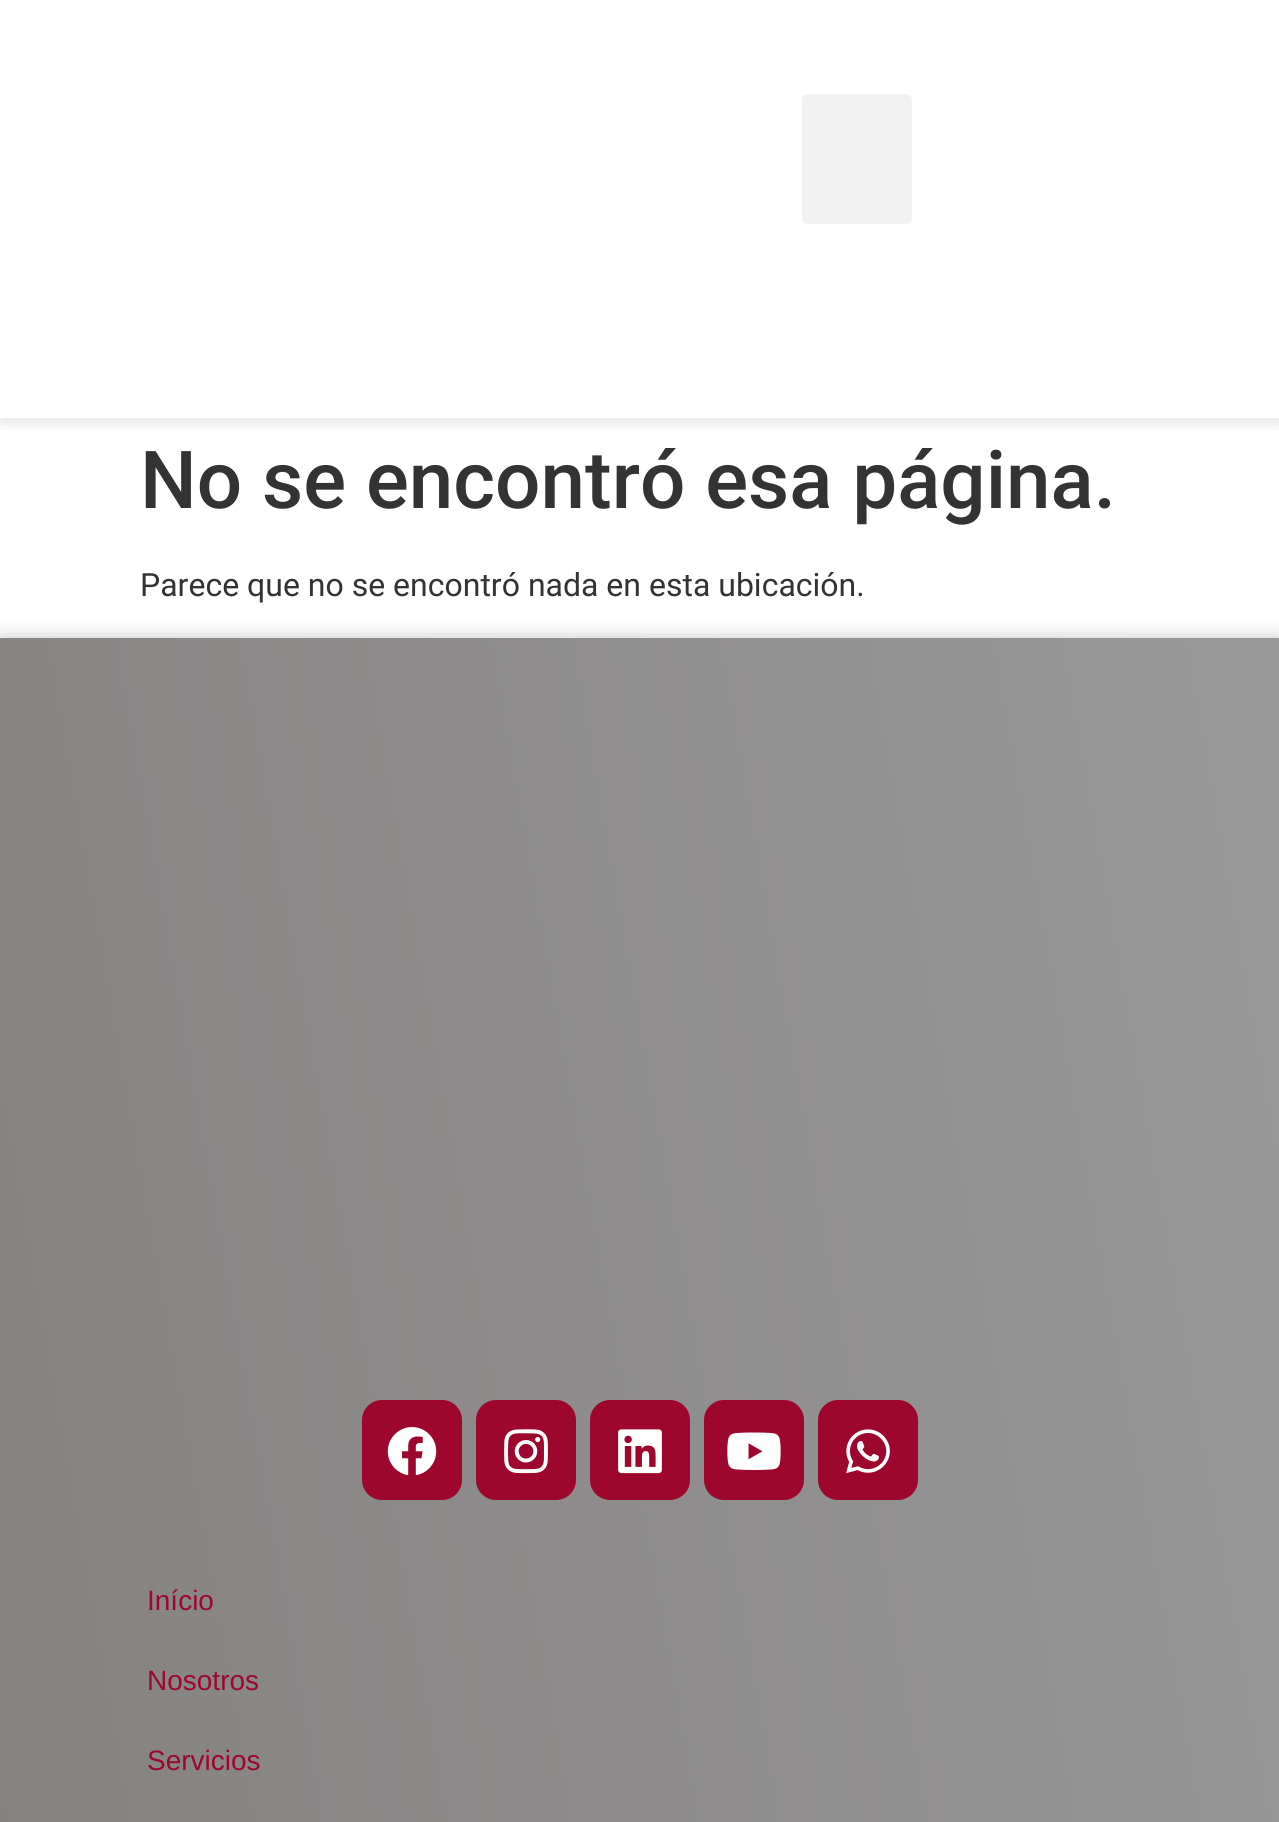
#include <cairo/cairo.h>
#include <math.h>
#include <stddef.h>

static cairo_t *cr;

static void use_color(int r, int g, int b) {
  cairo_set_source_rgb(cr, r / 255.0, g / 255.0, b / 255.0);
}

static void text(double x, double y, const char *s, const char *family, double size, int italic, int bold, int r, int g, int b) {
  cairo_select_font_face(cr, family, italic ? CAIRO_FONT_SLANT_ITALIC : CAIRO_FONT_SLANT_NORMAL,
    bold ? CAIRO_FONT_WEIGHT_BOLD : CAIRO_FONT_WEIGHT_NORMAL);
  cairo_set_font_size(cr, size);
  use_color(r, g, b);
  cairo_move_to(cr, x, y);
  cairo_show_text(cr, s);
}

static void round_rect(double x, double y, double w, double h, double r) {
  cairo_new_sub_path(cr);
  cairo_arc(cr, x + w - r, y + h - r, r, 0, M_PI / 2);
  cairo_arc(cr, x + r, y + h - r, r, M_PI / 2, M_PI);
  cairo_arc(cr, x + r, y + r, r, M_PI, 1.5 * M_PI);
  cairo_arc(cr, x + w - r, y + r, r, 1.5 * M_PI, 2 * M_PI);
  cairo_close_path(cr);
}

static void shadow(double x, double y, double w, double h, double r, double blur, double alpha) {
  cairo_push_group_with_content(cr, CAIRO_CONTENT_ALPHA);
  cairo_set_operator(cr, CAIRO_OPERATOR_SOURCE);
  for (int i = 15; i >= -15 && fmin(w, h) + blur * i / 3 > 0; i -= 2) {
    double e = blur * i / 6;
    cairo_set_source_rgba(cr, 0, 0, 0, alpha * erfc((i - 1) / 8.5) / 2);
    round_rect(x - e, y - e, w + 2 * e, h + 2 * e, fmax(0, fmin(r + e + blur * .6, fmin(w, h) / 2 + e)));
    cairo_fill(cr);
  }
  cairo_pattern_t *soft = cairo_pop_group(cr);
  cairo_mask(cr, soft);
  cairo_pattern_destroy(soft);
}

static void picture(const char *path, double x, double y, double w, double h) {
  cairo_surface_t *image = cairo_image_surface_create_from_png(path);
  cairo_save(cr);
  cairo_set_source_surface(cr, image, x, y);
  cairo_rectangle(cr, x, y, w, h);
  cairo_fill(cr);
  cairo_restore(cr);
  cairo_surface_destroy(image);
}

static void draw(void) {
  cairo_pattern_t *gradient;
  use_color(255, 255, 255);
  cairo_paint(cr);
  cairo_save(cr);
  cairo_rectangle(cr, 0, 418, 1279, 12);
  cairo_clip(cr);
  use_color(0, 0, 0);
  shadow(0, 0, 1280, 418, 0, 10, 0.17);
  cairo_restore(cr);
  use_color(242, 242, 242);
  round_rect(802, 94, 110, 130, 6);
  cairo_fill(cr);
  use_color(0, 0, 0);
  shadow(0, 638, 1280, 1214, 0, 10, 0.22);
  gradient = cairo_pattern_create_linear(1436, 1523, -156, 1803);
  cairo_pattern_add_color_stop_rgba(gradient, 0, 0.6, 0.6, 0.6, 1);
  cairo_pattern_add_color_stop_rgba(gradient, 1, 0.514, 0.498, 0.498, 1);
  cairo_set_source(cr, gradient);
  cairo_pattern_destroy(gradient);
  cairo_rectangle(cr, 0, 638, 1279, 1184);
  cairo_fill(cr);
  use_color(158, 7, 45);
  round_rect(362, 1400, 100, 100, 20);
  cairo_fill(cr);
  picture("img_01.png", 387, 1427, 50, 49);
  round_rect(476, 1400, 100, 100, 20);
  cairo_fill(cr);
  picture("img_02.png", 504, 1429, 44, 45);
  round_rect(590, 1400, 100, 100, 20);
  cairo_fill(cr);
  picture("img_03.png", 618, 1429, 44, 45);
  round_rect(704, 1400, 100, 100, 20);
  cairo_fill(cr);
  picture("img_04.png", 727, 1432, 54, 38);
  round_rect(818, 1400, 100, 100, 20);
  cairo_fill(cr);
  picture("img_05.png", 846, 1429, 44, 45);
  text(140, 508, "No se encontró esa página.", "Roboto Medium", 80, 0, 0, 51, 51, 51);
  text(140, 596, "Parece que no se encontró nada en esta ubicación.", "Roboto", 32, 0, 0, 51, 51, 51);
  text(147, 1610, "Início", "Liberation Sans", 28, 0, 0, 158, 7, 45);
  text(147, 1690, "Nosotros", "Liberation Sans", 28, 0, 0, 158, 7, 45);
  text(147, 1770, "Servicios", "Liberation Sans", 28, 0, 0, 158, 7, 45);
}

int main(void) {
  cairo_surface_t *surface = cairo_image_surface_create(CAIRO_FORMAT_RGB24, 1279, 1822);
  cr = cairo_create(surface);
  cairo_font_options_t *options = cairo_font_options_create();
  cairo_font_options_set_hint_metrics(options, CAIRO_HINT_METRICS_OFF);
  cairo_font_options_set_hint_style(options, CAIRO_HINT_STYLE_NONE);
  cairo_set_font_options(cr, options);
  cairo_set_miter_limit(cr, 4);
  draw();
  cairo_surface_write_to_png(surface, "out.png");
  cairo_font_options_destroy(options);
  cairo_destroy(cr);
  cairo_surface_destroy(surface);
  return 0;
}
